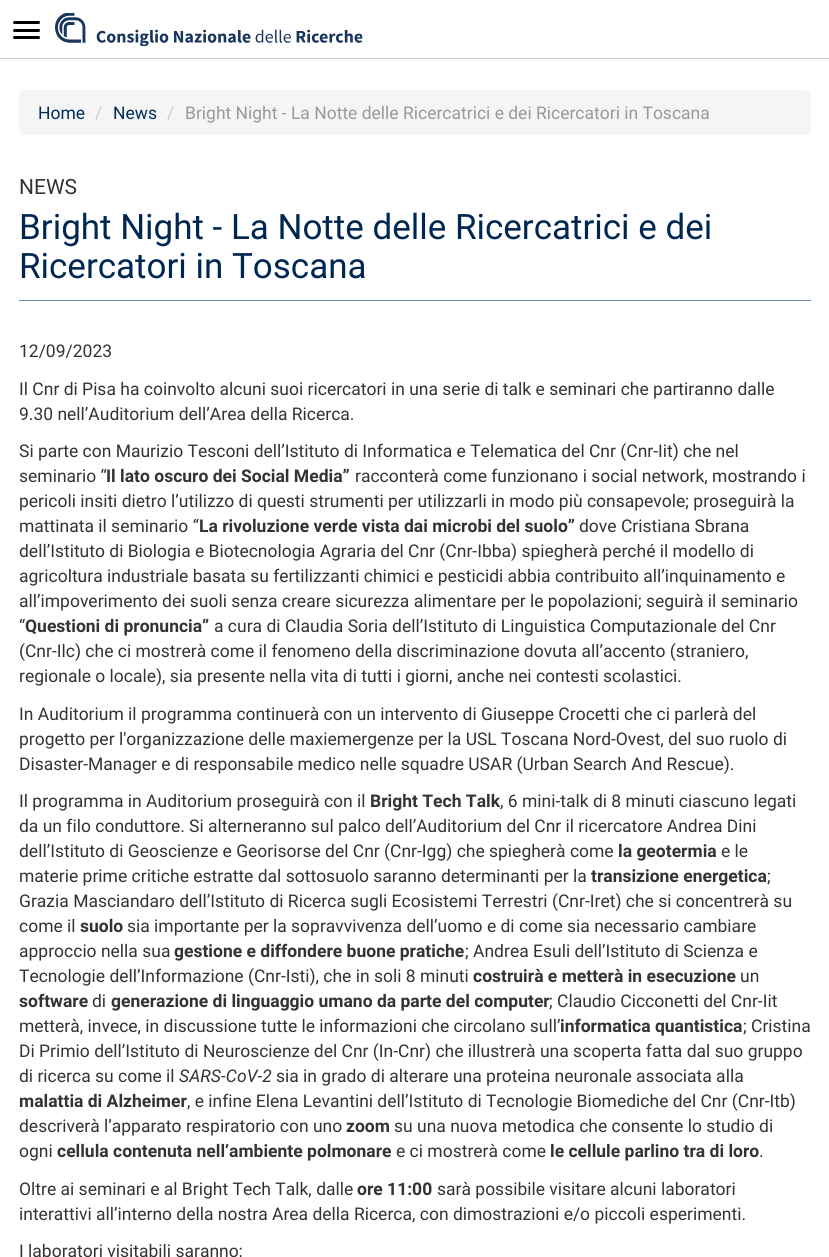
#include <cairo/cairo.h>
#include <math.h>
#include <stddef.h>

static cairo_t *cr;

static void use_color(int r, int g, int b) {
  cairo_set_source_rgb(cr, r / 255.0, g / 255.0, b / 255.0);
}

static void text(double x, double y, const char *s, const char *family, double size, int italic, int bold, int r, int g, int b) {
  cairo_select_font_face(cr, family, italic ? CAIRO_FONT_SLANT_ITALIC : CAIRO_FONT_SLANT_NORMAL,
    bold ? CAIRO_FONT_WEIGHT_BOLD : CAIRO_FONT_WEIGHT_NORMAL);
  cairo_set_font_size(cr, size);
  use_color(r, g, b);
  cairo_move_to(cr, x, y);
  cairo_show_text(cr, s);
}

static void box(double x, double y, double w, double h, int r, int g, int b) {
  use_color(r, g, b);
  cairo_rectangle(cr, x, y, w, h);
  cairo_fill(cr);
}

static void round_rect(double x, double y, double w, double h, double r) {
  cairo_new_sub_path(cr);
  cairo_arc(cr, x + w - r, y + h - r, r, 0, M_PI / 2);
  cairo_arc(cr, x + r, y + h - r, r, M_PI / 2, M_PI);
  cairo_arc(cr, x + r, y + r, r, M_PI, 1.5 * M_PI);
  cairo_arc(cr, x + w - r, y + r, r, 1.5 * M_PI, 2 * M_PI);
  cairo_close_path(cr);
}

static void picture(const char *path, double x, double y, double w, double h) {
  cairo_surface_t *image = cairo_image_surface_create_from_png(path);
  cairo_save(cr);
  cairo_set_source_surface(cr, image, x, y);
  cairo_rectangle(cr, x, y, w, h);
  cairo_fill(cr);
  cairo_restore(cr);
  cairo_surface_destroy(image);
}

static void draw(void) {
  use_color(255, 255, 255);
  cairo_paint(cr);
  box(0, 58, 829, 1, 204, 204, 204);
  picture("img_01.png", 55, 13, 308, 33);
  use_color(0, 0, 0);
  round_rect(13, 21, 27, 3, 1.5);
  cairo_fill(cr);
  round_rect(13, 29, 27, 3, 1.5);
  cairo_fill(cr);
  round_rect(13, 36, 27, 3, 1.5);
  cairo_fill(cr);
  use_color(245, 245, 245);
  round_rect(19, 90, 792, 45, 5);
  cairo_fill(cr);
  box(19, 300, 792, 1, 110, 137, 164);
  text(38, 119, "Home", "Roboto", 17.5, 0, 0, 0, 45, 90);
  text(95, 119, "/", "Roboto", 17.5, 0, 0, 204, 204, 204);
  text(113, 119, "News", "Roboto", 17.5, 0, 0, 0, 45, 90);
  text(167, 119, "/", "Roboto", 17.5, 0, 0, 204, 204, 204);
  text(185, 119, "Bright Night - La Notte delle Ricercatrici e dei Ricercatori in Toscana", "Roboto", 17.5, 0, 0, 153, 153, 153);
  text(19, 194, "NEWS", "Roboto", 21, 0, 0, 51, 51, 51);
  text(19, 239, "Bright Night - La Notte delle Ricercatrici e dei", "Roboto", 35, 0, 0, 0, 39, 82);
  text(19, 278, "Ricercatori in Toscana", "Roboto", 35, 0, 0, 0, 39, 82);
  text(19, 357, "12/09/2023", "Roboto", 17.5, 0, 0, 51, 51, 51);
  text(19, 395, "Il Cnr di Pisa ha coinvolto alcuni suoi ricercatori in una serie di talk e seminari che partiranno dalle", "Roboto", 17.5, 0, 0, 51, 51, 51);
  text(19, 420, "9.30 nell’Auditorium dell’Area della Ricerca.", "Roboto", 17.5, 0, 0, 51, 51, 51);
  text(19, 457, "Si parte con Maurizio Tesconi dell’Istituto di Informatica e Telematica del Cnr (Cnr-Iit) che nel", "Roboto", 17.5, 0, 0, 51, 51, 51);
  text(19, 482, "seminario “", "Roboto", 17.5, 0, 0, 51, 51, 51);
  text(106, 482, "Il lato oscuro dei Social Media”", "Roboto", 17.5, 0, 1, 51, 51, 51);
  text(355, 482, "racconterà come funzionano i social network, mostrando i", "Roboto", 17.5, 0, 0, 51, 51, 51);
  text(19, 507, "pericoli insiti dietro l’utilizzo di questi strumenti per utilizzarli in modo più consapevole; proseguirà la", "Roboto", 17.5, 0, 0, 51, 51, 51);
  text(19, 532, "mattinata il seminario “", "Roboto", 17.5, 0, 0, 51, 51, 51);
  text(199, 532, "La rivoluzione verde vista dai microbi del suolo”", "Roboto", 17.5, 0, 1, 51, 51, 51);
  text(579, 532, "dove Cristiana Sbrana", "Roboto", 17.5, 0, 0, 51, 51, 51);
  text(19, 557, "dell’Istituto di Biologia e Biotecnologia Agraria del Cnr (Cnr-Ibba) spiegherà perché il modello di", "Roboto", 17.5, 0, 0, 51, 51, 51);
  text(19, 582, "agricoltura industriale basata su fertilizzanti chimici e pesticidi abbia contribuito all’inquinamento e", "Roboto", 17.5, 0, 0, 51, 51, 51);
  text(19, 607, "all’impoverimento dei suoli senza creare sicurezza alimentare per le popolazioni; seguirà il seminario", "Roboto", 17.5, 0, 0, 51, 51, 51);
  text(19, 632, "“", "Roboto", 17.5, 0, 0, 51, 51, 51);
  text(25, 632, "Questioni di pronuncia”", "Roboto", 17.5, 0, 1, 51, 51, 51);
  text(214, 632, "a cura di Claudia Soria dell’Istituto di Linguistica Computazionale del Cnr", "Roboto", 17.5, 0, 0, 51, 51, 51);
  text(19, 657, "(Cnr-Ilc) che ci mostrerà come il fenomeno della discriminazione dovuta all’accento (straniero,", "Roboto", 17.5, 0, 0, 51, 51, 51);
  text(19, 682, "regionale o locale), sia presente nella vita di tutti i giorni, anche nei contesti scolastici.", "Roboto", 17.5, 0, 0, 51, 51, 51);
  text(19, 720, "In Auditorium il programma continuerà con un intervento di Giuseppe Crocetti che ci parlerà del", "Roboto", 17.5, 0, 0, 51, 51, 51);
  text(19, 745, "progetto per l'organizzazione delle maxiemergenze per la USL Toscana Nord-Ovest, del suo ruolo di", "Roboto", 17.5, 0, 0, 51, 51, 51);
  text(19, 770, "Disaster-Manager e di responsabile medico nelle squadre USAR (Urban Search And Rescue).", "Roboto", 17.5, 0, 0, 51, 51, 51);
  text(19, 807, "Il programma in Auditorium proseguirà con il", "Roboto", 17.5, 0, 0, 51, 51, 51);
  text(370, 807, "Bright Tech Talk", "Roboto", 17.5, 0, 1, 51, 51, 51);
  text(500, 807, ", 6 mini-talk di 8 minuti ciascuno legati", "Roboto", 17.5, 0, 0, 51, 51, 51);
  text(19, 832, "da un filo conduttore. Si alterneranno sul palco dell’Auditorium del Cnr il ricercatore Andrea Dini", "Roboto", 17.5, 0, 0, 51, 51, 51);
  text(19, 857, "dell’Istituto di Geoscienze e Georisorse del Cnr (Cnr-Igg) che spiegherà come", "Roboto", 17.5, 0, 0, 51, 51, 51);
  text(618, 857, "la geotermia", "Roboto", 17.5, 0, 1, 51, 51, 51);
  text(721, 857, "e le", "Roboto", 17.5, 0, 0, 51, 51, 51);
  text(19, 882, "materie prime critiche estratte dal sottosuolo saranno determinanti per la", "Roboto", 17.5, 0, 0, 51, 51, 51);
  text(591, 882, "transizione energetica", "Roboto", 17.5, 0, 1, 51, 51, 51);
  text(767, 882, ";", "Roboto", 17.5, 0, 0, 51, 51, 51);
  text(19, 907, "Grazia Masciandaro dell’Istituto di Ricerca sugli Ecosistemi Terrestri (Cnr-Iret) che si concentrerà su", "Roboto", 17.5, 0, 0, 51, 51, 51);
  text(19, 932, "come il", "Roboto", 17.5, 0, 0, 51, 51, 51);
  text(80, 932, "suolo", "Roboto", 17.5, 0, 1, 51, 51, 51);
  text(127, 932, "sia importante per la sopravvivenza dell’uomo e di come sia necessario cambiare", "Roboto", 17.5, 0, 0, 51, 51, 51);
  text(19, 957, "approccio nella sua", "Roboto", 17.5, 0, 0, 51, 51, 51);
  text(174, 957, "gestione e diffondere buone pratiche", "Roboto", 17.5, 0, 1, 51, 51, 51);
  text(465, 957, "; Andrea Esuli dell’Istituto di Scienza e", "Roboto", 17.5, 0, 0, 51, 51, 51);
  text(19, 982, "Tecnologie dell’Informazione (Cnr-Isti), che in soli 8 minuti", "Roboto", 17.5, 0, 0, 51, 51, 51);
  text(473, 982, "costruirà e metterà in esecuzione", "Roboto", 17.5, 0, 1, 51, 51, 51);
  text(740, 982, "un", "Roboto", 17.5, 0, 0, 51, 51, 51);
  text(19, 1007, "software", "Roboto", 17.5, 0, 1, 51, 51, 51);
  text(92, 1007, "di", "Roboto", 17.5, 0, 0, 51, 51, 51);
  text(111, 1007, "generazione di linguaggio umano da parte del computer", "Roboto", 17.5, 0, 1, 51, 51, 51);
  text(549, 1007, "; Claudio Cicconetti del Cnr-Iit", "Roboto", 17.5, 0, 0, 51, 51, 51);
  text(19, 1032, "metterà, invece, in discussione tutte le informazioni che circolano sull’", "Roboto", 17.5, 0, 0, 51, 51, 51);
  text(560, 1032, "informatica quantistica", "Roboto", 17.5, 0, 1, 51, 51, 51);
  text(743, 1032, "; Cristina", "Roboto", 17.5, 0, 0, 51, 51, 51);
  text(19, 1057, "Di Primio dell’Istituto di Neuroscienze del Cnr (In-Cnr) che illustrerà una scoperta fatta dal suo gruppo", "Roboto", 17.5, 0, 0, 51, 51, 51);
  text(19, 1082, "di ricerca su come il", "Roboto", 17.5, 0, 0, 51, 51, 51);
  text(179, 1082, "SARS-CoV-2", "Roboto", 17.5, 1, 0, 51, 51, 51);
  text(276, 1082, "sia in grado di alterare una proteina neuronale associata alla", "Roboto", 17.5, 0, 0, 51, 51, 51);
  text(19, 1107, "malattia di Alzheimer", "Roboto", 17.5, 0, 1, 51, 51, 51);
  text(187, 1107, ", e infine Elena Levantini dell’Istituto di Tecnologie Biomediche del Cnr (Cnr-Itb)", "Roboto", 17.5, 0, 0, 51, 51, 51);
  text(19, 1132, "descriverà l’apparato respiratorio con uno", "Roboto", 17.5, 0, 0, 51, 51, 51);
  text(346, 1132, "zoom", "Roboto", 17.5, 0, 1, 51, 51, 51);
  text(394, 1132, "su una nuova metodica che consente lo studio di", "Roboto", 17.5, 0, 0, 51, 51, 51);
  text(19, 1157, "ogni", "Roboto", 17.5, 0, 0, 51, 51, 51);
  text(57, 1157, "cellula contenuta nell’ambiente polmonare", "Roboto", 17.5, 0, 1, 51, 51, 51);
  text(396, 1157, "e ci mostrerà come", "Roboto", 17.5, 0, 0, 51, 51, 51);
  text(550, 1157, "le cellule parlino tra di loro", "Roboto", 17.5, 0, 1, 51, 51, 51);
  text(759, 1157, ".", "Roboto", 17.5, 0, 0, 51, 51, 51);
  text(19, 1195, "Oltre ai seminari e al Bright Tech Talk, dalle", "Roboto", 17.5, 0, 0, 51, 51, 51);
  text(357, 1195, "ore 11:00", "Roboto", 17.5, 0, 1, 51, 51, 51);
  text(437, 1195, "sarà possibile visitare alcuni laboratori", "Roboto", 17.5, 0, 0, 51, 51, 51);
  text(19, 1220, "interattivi all’interno della nostra Area della Ricerca, con dimostrazioni e/o piccoli esperimenti.", "Roboto", 17.5, 0, 0, 51, 51, 51);
  text(19, 1257, "I laboratori visitabili saranno;", "Roboto", 17.5, 0, 0, 51, 51, 51);
}

int main(void) {
  cairo_surface_t *surface = cairo_image_surface_create(CAIRO_FORMAT_RGB24, 829, 1257);
  cr = cairo_create(surface);
  cairo_font_options_t *options = cairo_font_options_create();
  cairo_font_options_set_hint_metrics(options, CAIRO_HINT_METRICS_OFF);
  cairo_font_options_set_hint_style(options, CAIRO_HINT_STYLE_NONE);
  cairo_set_font_options(cr, options);
  cairo_set_miter_limit(cr, 4);
  draw();
  cairo_surface_write_to_png(surface, "out.png");
  cairo_font_options_destroy(options);
  cairo_destroy(cr);
  cairo_surface_destroy(surface);
  return 0;
}
